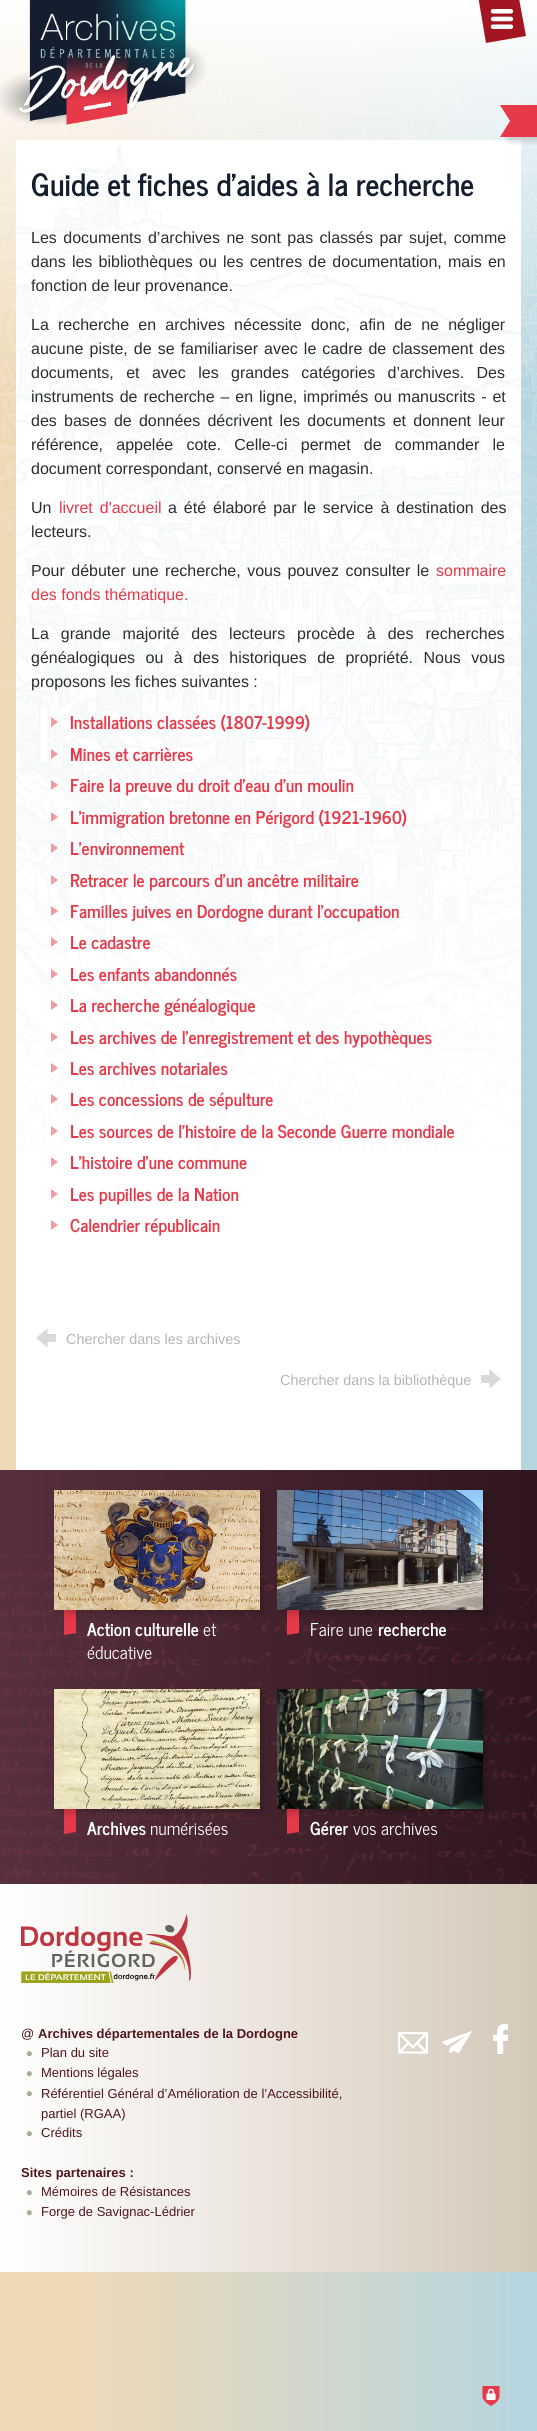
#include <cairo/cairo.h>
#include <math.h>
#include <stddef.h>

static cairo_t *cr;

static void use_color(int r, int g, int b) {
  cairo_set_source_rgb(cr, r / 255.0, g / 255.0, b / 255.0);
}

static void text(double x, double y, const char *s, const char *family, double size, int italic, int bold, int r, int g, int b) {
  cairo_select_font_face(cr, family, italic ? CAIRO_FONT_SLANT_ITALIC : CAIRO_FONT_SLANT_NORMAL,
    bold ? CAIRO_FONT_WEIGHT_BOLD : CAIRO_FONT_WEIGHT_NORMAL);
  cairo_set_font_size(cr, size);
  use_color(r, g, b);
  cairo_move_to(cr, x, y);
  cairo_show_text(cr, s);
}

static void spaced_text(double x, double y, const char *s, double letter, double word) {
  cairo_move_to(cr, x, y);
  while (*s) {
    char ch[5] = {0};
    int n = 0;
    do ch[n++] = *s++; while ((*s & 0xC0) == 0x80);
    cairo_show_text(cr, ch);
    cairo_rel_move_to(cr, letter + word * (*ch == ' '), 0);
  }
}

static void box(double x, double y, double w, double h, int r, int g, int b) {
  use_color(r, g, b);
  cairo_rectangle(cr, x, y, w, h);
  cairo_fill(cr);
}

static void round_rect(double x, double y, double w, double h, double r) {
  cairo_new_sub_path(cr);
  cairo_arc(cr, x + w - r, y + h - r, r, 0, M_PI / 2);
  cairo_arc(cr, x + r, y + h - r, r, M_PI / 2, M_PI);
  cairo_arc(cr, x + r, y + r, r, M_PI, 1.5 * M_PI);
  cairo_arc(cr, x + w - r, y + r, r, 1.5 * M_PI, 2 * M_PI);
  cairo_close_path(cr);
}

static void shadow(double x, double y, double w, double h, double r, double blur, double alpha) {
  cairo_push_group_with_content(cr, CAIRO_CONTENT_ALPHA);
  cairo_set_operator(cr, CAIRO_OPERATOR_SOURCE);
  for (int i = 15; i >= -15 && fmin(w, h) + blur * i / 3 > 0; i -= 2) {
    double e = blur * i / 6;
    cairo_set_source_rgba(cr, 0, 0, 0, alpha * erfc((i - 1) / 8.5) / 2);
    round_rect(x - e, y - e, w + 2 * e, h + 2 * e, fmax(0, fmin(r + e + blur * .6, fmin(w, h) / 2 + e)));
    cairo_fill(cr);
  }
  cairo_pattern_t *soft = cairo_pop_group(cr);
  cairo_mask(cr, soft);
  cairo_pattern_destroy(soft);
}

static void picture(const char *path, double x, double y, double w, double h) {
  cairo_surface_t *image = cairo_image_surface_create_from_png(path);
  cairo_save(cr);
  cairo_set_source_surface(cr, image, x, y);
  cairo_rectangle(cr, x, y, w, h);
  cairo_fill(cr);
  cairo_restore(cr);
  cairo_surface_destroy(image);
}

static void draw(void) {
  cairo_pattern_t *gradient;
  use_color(255, 255, 255);
  cairo_paint(cr);
  gradient = cairo_pattern_create_linear(0, 1216, 537, 1216);
  cairo_pattern_add_color_stop_rgba(gradient, 0.14, 0.933, 0.851, 0.718, 1);
  cairo_pattern_add_color_stop_rgba(gradient, 1, 0.71, 0.835, 0.875, 1);
  cairo_set_source(cr, gradient);
  cairo_pattern_destroy(gradient);
  cairo_rectangle(cr, 0, 2, 537, 2429);
  cairo_fill(cr);
  gradient = cairo_pattern_create_linear(269, 0, 269, 385);
  cairo_pattern_add_color_stop_rgba(gradient, 0, 1, 1, 1, 1);
  cairo_pattern_add_color_stop_rgba(gradient, 1, 1, 1, 1, 0);
  cairo_set_source(cr, gradient);
  cairo_pattern_destroy(gradient);
  cairo_rectangle(cr, 0, 2, 537, 370);
  cairo_fill(cr);
  picture("img_01.png", 0, 91, 537, 597);
  picture("img_02.png", 0, 0, 206, 125);
  use_color(164, 21, 34);
  cairo_new_path(cr);
  cairo_move_to(cr, 476, -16);
  cairo_line_to(cr, 515, -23);
  cairo_line_to(cr, 526, 36);
  cairo_line_to(cr, 486, 43);
  cairo_close_path(cr);
  cairo_fill(cr);
  picture("img_03.png", 490, 9, 24, 20);
  box(16, 140, 505, 1330, 255, 255, 255);
  picture("img_04.png", 16, 146, 505, 1006);
  cairo_save(cr);
  cairo_rectangle(cr, 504, 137, 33, 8);
  cairo_clip(cr);
  use_color(0, 0, 0);
  shadow(507, 110, 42, 32, 3, 3, 0.15);
  cairo_restore(cr);
  use_color(230, 57, 73);
  cairo_new_path(cr);
  cairo_move_to(cr, 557, 137);
  cairo_line_to(cr, 500, 137);
  cairo_line_to(cr, 510, 121);
  cairo_line_to(cr, 500, 105);
  cairo_line_to(cr, 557, 105);
  cairo_close_path(cr);
  cairo_fill(cr);
  cairo_set_source_rgba(cr, 0.902, 0.224, 0.286, 0.5);
  cairo_new_path(cr);
  cairo_move_to(cr, 51, 727);
  cairo_line_to(cr, 51, 717);
  cairo_line_to(cr, 58, 722);
  cairo_close_path(cr);
  cairo_fill(cr);
  cairo_new_path(cr);
  cairo_move_to(cr, 51, 759);
  cairo_line_to(cr, 51, 749);
  cairo_line_to(cr, 58, 754);
  cairo_close_path(cr);
  cairo_fill(cr);
  cairo_new_path(cr);
  cairo_move_to(cr, 51, 790);
  cairo_line_to(cr, 51, 780);
  cairo_line_to(cr, 58, 785);
  cairo_close_path(cr);
  cairo_fill(cr);
  cairo_new_path(cr);
  cairo_move_to(cr, 51, 822);
  cairo_line_to(cr, 51, 812);
  cairo_line_to(cr, 58, 817);
  cairo_close_path(cr);
  cairo_fill(cr);
  cairo_new_path(cr);
  cairo_move_to(cr, 51, 853);
  cairo_line_to(cr, 51, 843);
  cairo_line_to(cr, 58, 848);
  cairo_close_path(cr);
  cairo_fill(cr);
  use_color(242, 156, 164);
  cairo_new_path(cr);
  cairo_move_to(cr, 51, 885);
  cairo_line_to(cr, 51, 875);
  cairo_line_to(cr, 58, 880);
  cairo_close_path(cr);
  cairo_fill(cr);
  cairo_set_source_rgba(cr, 0.902, 0.224, 0.286, 0.5);
  cairo_new_path(cr);
  cairo_move_to(cr, 51, 916);
  cairo_line_to(cr, 51, 906);
  cairo_line_to(cr, 58, 911);
  cairo_close_path(cr);
  cairo_fill(cr);
  cairo_new_path(cr);
  cairo_move_to(cr, 51, 947);
  cairo_line_to(cr, 51, 937);
  cairo_line_to(cr, 58, 942);
  cairo_close_path(cr);
  cairo_fill(cr);
  use_color(242, 156, 164);
  cairo_new_path(cr);
  cairo_move_to(cr, 51, 979);
  cairo_line_to(cr, 51, 969);
  cairo_line_to(cr, 58, 974);
  cairo_close_path(cr);
  cairo_fill(cr);
  cairo_set_source_rgba(cr, 0.902, 0.224, 0.286, 0.5);
  cairo_new_path(cr);
  cairo_move_to(cr, 51, 1010);
  cairo_line_to(cr, 51, 1000);
  cairo_line_to(cr, 58, 1005);
  cairo_close_path(cr);
  cairo_fill(cr);
  cairo_new_path(cr);
  cairo_move_to(cr, 51, 1042);
  cairo_line_to(cr, 51, 1032);
  cairo_line_to(cr, 58, 1037);
  cairo_close_path(cr);
  cairo_fill(cr);
  cairo_new_path(cr);
  cairo_move_to(cr, 51, 1073);
  cairo_line_to(cr, 51, 1063);
  cairo_line_to(cr, 58, 1068);
  cairo_close_path(cr);
  cairo_fill(cr);
  cairo_new_path(cr);
  cairo_move_to(cr, 51, 1104);
  cairo_line_to(cr, 51, 1094);
  cairo_line_to(cr, 58, 1099);
  cairo_close_path(cr);
  cairo_fill(cr);
  use_color(242, 156, 164);
  cairo_new_path(cr);
  cairo_move_to(cr, 51, 1136);
  cairo_line_to(cr, 51, 1126);
  cairo_line_to(cr, 58, 1131);
  cairo_close_path(cr);
  cairo_fill(cr);
  use_color(243, 156, 164);
  cairo_new_path(cr);
  cairo_move_to(cr, 51, 1167);
  cairo_line_to(cr, 51, 1157);
  cairo_line_to(cr, 58, 1162);
  cairo_close_path(cr);
  cairo_fill(cr);
  cairo_new_path(cr);
  cairo_move_to(cr, 51, 1199);
  cairo_line_to(cr, 51, 1189);
  cairo_line_to(cr, 58, 1194);
  cairo_close_path(cr);
  cairo_fill(cr);
  cairo_new_path(cr);
  cairo_move_to(cr, 51, 1230);
  cairo_line_to(cr, 51, 1220);
  cairo_line_to(cr, 58, 1225);
  cairo_close_path(cr);
  cairo_fill(cr);
  picture("img_05.png", 36, 1328, 20, 20);
  picture("img_06.png", 481, 1369, 20, 20);
  gradient = cairo_pattern_create_linear(537, 1677, 0, 1677);
  cairo_pattern_add_color_stop_rgba(gradient, 0, 0.184, 0.086, 0.118, 1);
  cairo_pattern_add_color_stop_rgba(gradient, 1, 0.349, 0.184, 0.239, 1);
  cairo_set_source(cr, gradient);
  cairo_pattern_destroy(gradient);
  cairo_rectangle(cr, 0, 1470, 537, 414);
  cairo_fill(cr);
  picture("img_07.png", 0, 1554, 537, 330);
  use_color(230, 57, 73);
  cairo_set_fill_rule(cr, CAIRO_FILL_RULE_EVEN_ODD);
  cairo_new_path(cr);
  cairo_move_to(cr, 64, 1590);
  cairo_line_to(cr, 76, 1590);
  cairo_line_to(cr, 76, 1633);
  cairo_line_to(cr, 64, 1635);
  cairo_close_path(cr);
  cairo_fill(cr);
  use_color(0, 0, 0);
  shadow(58, 1494, 206, 120, 0, 4, 0.2);
  picture("img_08.png", 54, 1490, 206, 120);
  use_color(230, 57, 73);
  cairo_new_path(cr);
  cairo_move_to(cr, 287, 1590);
  cairo_line_to(cr, 299, 1590);
  cairo_line_to(cr, 299, 1633);
  cairo_line_to(cr, 287, 1635);
  cairo_close_path(cr);
  cairo_fill(cr);
  use_color(0, 0, 0);
  shadow(281, 1494, 206, 120, 0, 4, 0.2);
  picture("img_09.png", 277, 1490, 206, 120);
  use_color(230, 57, 73);
  cairo_new_path(cr);
  cairo_move_to(cr, 64, 1789);
  cairo_line_to(cr, 76, 1789);
  cairo_line_to(cr, 76, 1832);
  cairo_line_to(cr, 64, 1834);
  cairo_close_path(cr);
  cairo_fill(cr);
  use_color(0, 0, 0);
  shadow(58, 1693, 206, 120, 0, 4, 0.2);
  picture("img_10.png", 54, 1689, 206, 120);
  use_color(230, 57, 73);
  cairo_new_path(cr);
  cairo_move_to(cr, 287, 1789);
  cairo_line_to(cr, 299, 1789);
  cairo_line_to(cr, 299, 1832);
  cairo_line_to(cr, 287, 1834);
  cairo_close_path(cr);
  cairo_fill(cr);
  use_color(0, 0, 0);
  shadow(281, 1693, 206, 120, 0, 4, 0.2);
  picture("img_11.png", 277, 1689, 206, 120);
  gradient = cairo_pattern_create_linear(537, 2078, 0, 2078);
  cairo_pattern_add_color_stop_rgba(gradient, 0, 0.831, 0.788, 0.725, 1);
  cairo_pattern_add_color_stop_rgba(gradient, 1, 1, 1, 1, 1);
  cairo_set_source(cr, gradient);
  cairo_pattern_destroy(gradient);
  cairo_rectangle(cr, 0, 1884, 537, 388);
  cairo_fill(cr);
  picture("img_12.png", 21, 1914, 170, 69);
  picture("img_13.png", 398, 2032, 30, 22);
  picture("img_14.png", 442, 2031, 30, 23);
  picture("img_15.png", 493, 2024, 15, 30);
  picture("img_16.png", 482, 2386, 18, 20);
  text(31, 196, "Guide et fiches d'aides à la recherche", "News Cycle", 30.4, 0, 1, 21, 30, 47);
  cairo_select_font_face(cr, "Liberation Sans", CAIRO_FONT_SLANT_NORMAL, CAIRO_FONT_WEIGHT_NORMAL);
  cairo_set_font_size(cr, 16);
  use_color(43, 45, 47);
  spaced_text(31, 243, "Les documents d’archives ne sont pas classés par sujet, comme", 0, 2);
  spaced_text(31, 267, "dans les bibliothèques ou les centres de documentation, mais en", 0, 1.75);
  text(31, 291, "fonction de leur provenance.", "Liberation Sans", 16, 0, 0, 43, 45, 47);
  spaced_text(31, 330, "La recherche en archives nécessite donc, afin de ne négliger", 0, 4.75);
  spaced_text(31, 354, "aucune piste, de se familiariser avec le cadre de classement des", 0, 1.6);
  spaced_text(31, 378, "documents, et avec les grandes catégories d’archives. Des", 0, 8);
  spaced_text(31, 402, "instruments de recherche – en ligne, imprimés ou manuscrits - et", 0, 1.5);
  spaced_text(31, 426, "des bases de données décrivent les documents et donnent leur", 0, 2.75);
  spaced_text(31, 450, "référence, appelée cote. Celle-ci permet de commander le", 0, 8.75);
  text(31, 474, "document correspondant, conservé en magasin.", "Liberation Sans", 16, 0, 0, 43, 45, 47);
  text(31, 513, "Un", "Liberation Sans", 16, 0, 0, 43, 45, 47);
  use_color(230, 57, 73);
  spaced_text(59, 513, "livret d'accueil", 0, 2.5);
  use_color(43, 45, 47);
  spaced_text(168, 513, "a été élaboré par le service à destination des", 0, 2.5);
  text(31, 537, "lecteurs.", "Liberation Sans", 16, 0, 0, 43, 45, 47);
  spaced_text(31, 576, "Pour débuter une recherche, vous pouvez consulter le", 0, 2);
  text(436, 576, "sommaire", "Liberation Sans", 16, 0, 0, 230, 57, 73);
  text(31, 600, "des fonds thématique.", "Liberation Sans", 16, 0, 0, 230, 57, 73);
  use_color(43, 45, 47);
  spaced_text(31, 639, "La grande majorité des lecteurs procède à des recherches", 0, 7.5);
  spaced_text(31, 663, "généalogiques ou à des historiques de propriété. Nous vous", 0, 6);
  text(31, 687, "proposons les fiches suivantes :", "Liberation Sans", 16, 0, 0, 43, 45, 47);
  text(70, 729, "Installations classées (1807-1999)", "News Cycle", 17.6, 0, 1, 230, 57, 73);
  text(70, 761, "Mines et carrières", "News Cycle", 17.6, 0, 1, 230, 57, 73);
  text(70, 792, "Faire la preuve du droit d'eau d'un moulin", "News Cycle", 17.6, 0, 1, 230, 57, 73);
  text(70, 824, "L'immigration bretonne en Périgord (1921-1960)", "News Cycle", 17.6, 0, 1, 230, 57, 73);
  text(70, 855, "L'environnement", "News Cycle", 17.6, 0, 1, 230, 57, 73);
  text(70, 887, "Retracer le parcours d'un ancêtre militaire", "News Cycle", 17.6, 0, 1, 230, 57, 73);
  text(70, 918, "Familles juives en Dordogne durant l'occupation", "News Cycle", 17.6, 0, 1, 230, 57, 73);
  text(70, 949, "Le cadastre", "News Cycle", 17.6, 0, 1, 230, 57, 73);
  text(70, 981, "Les enfants abandonnés", "News Cycle", 17.6, 0, 1, 230, 57, 73);
  text(70, 1012, "La recherche généalogique", "News Cycle", 17.6, 0, 1, 230, 57, 73);
  text(70, 1044, "Les archives de l'enregistrement et des hypothèques", "News Cycle", 17.6, 0, 1, 230, 57, 73);
  text(70, 1075, "Les archives notariales", "News Cycle", 17.6, 0, 1, 230, 57, 73);
  text(70, 1106, "Les concessions de sépulture", "News Cycle", 17.6, 0, 1, 230, 57, 73);
  text(70, 1138, "Les sources de l'histoire de la Seconde Guerre mondiale", "News Cycle", 17.6, 0, 1, 230, 57, 73);
  text(70, 1169, "L'histoire d'une commune", "News Cycle", 17.6, 0, 1, 230, 57, 73);
  text(70, 1201, "Les pupilles de la Nation", "News Cycle", 17.6, 0, 1, 230, 57, 73);
  text(70, 1232, "Calendrier républicain", "News Cycle", 17.6, 0, 1, 230, 57, 73);
  text(66, 1344, "Chercher dans les archives", "Liberation Sans", 14.4, 0, 0, 178, 181, 186);
  text(280, 1385, "Chercher dans la bibliothèque", "Liberation Sans", 14.4, 0, 0, 178, 181, 186);
  text(87, 1636, "Action culturelle", "News Cycle", 17.6, 0, 1, 255, 255, 255);
  text(203, 1636, "et", "News Cycle", 17.6, 0, 0, 255, 255, 255);
  text(87, 1659, "éducative", "News Cycle", 17.6, 0, 0, 255, 255, 255);
  text(310, 1636, "Faire une", "News Cycle", 17.6, 0, 0, 255, 255, 255);
  text(378, 1636, "recherche", "News Cycle", 17.6, 0, 1, 255, 255, 255);
  text(87, 1835, "Archives", "News Cycle", 17.6, 0, 1, 255, 255, 255);
  text(150, 1835, "numérisées", "News Cycle", 17.6, 0, 0, 255, 255, 255);
  text(310, 1835, "Gérer", "News Cycle", 17.6, 0, 1, 255, 255, 255);
  text(353, 1835, "vos archives", "News Cycle", 17.6, 0, 0, 255, 255, 255);
  text(21, 2038, "@", "Liberation Sans", 13, 0, 0, 80, 22, 28);
  text(38, 2038, "Archives départementales de la Dordogne", "Liberation Sans", 13, 0, 1, 80, 22, 28);
  text(26, 2060, "•", "Liberation Sans", 19, 0, 0, 179, 168, 152);
  text(41, 2057, "Plan du site", "Liberation Sans", 13, 0, 0, 80, 22, 28);
  text(26, 2080, "•", "Liberation Sans", 19, 0, 0, 179, 168, 152);
  text(41, 2077, "Mentions légales", "Liberation Sans", 13, 0, 0, 80, 22, 28);
  text(26, 2100, "•", "Liberation Sans", 19, 0, 0, 179, 168, 152);
  text(41, 2098, "Référentiel Général d’Amélioration de l’Accessibilité,", "Liberation Sans", 13, 0, 0, 80, 22, 28);
  text(41, 2118, "partiel (RGAA)", "Liberation Sans", 13, 0, 0, 80, 22, 28);
  text(26, 2140, "•", "Liberation Sans", 19, 0, 0, 179, 168, 152);
  text(41, 2137, "Crédits", "Liberation Sans", 13, 0, 0, 80, 22, 28);
  text(21, 2177, "Sites partenaires :", "Liberation Sans", 13, 0, 1, 80, 22, 28);
  text(26, 2199, "•", "Liberation Sans", 19, 0, 0, 179, 168, 152);
  text(41, 2196, "Mémoires de Résistances", "Liberation Sans", 13, 0, 0, 80, 22, 28);
  text(26, 2219, "•", "Liberation Sans", 19, 0, 0, 179, 168, 152);
  text(41, 2216, "Forge de Savignac-Lédrier", "Liberation Sans", 13, 0, 0, 80, 22, 28);
}

int main(void) {
  cairo_surface_t *surface = cairo_image_surface_create(CAIRO_FORMAT_RGB24, 537, 2431);
  cr = cairo_create(surface);
  cairo_font_options_t *options = cairo_font_options_create();
  cairo_font_options_set_hint_metrics(options, CAIRO_HINT_METRICS_OFF);
  cairo_font_options_set_hint_style(options, CAIRO_HINT_STYLE_NONE);
  cairo_set_font_options(cr, options);
  cairo_set_miter_limit(cr, 4);
  draw();
  cairo_surface_write_to_png(surface, "out.png");
  cairo_font_options_destroy(options);
  cairo_destroy(cr);
  cairo_surface_destroy(surface);
  return 0;
}
